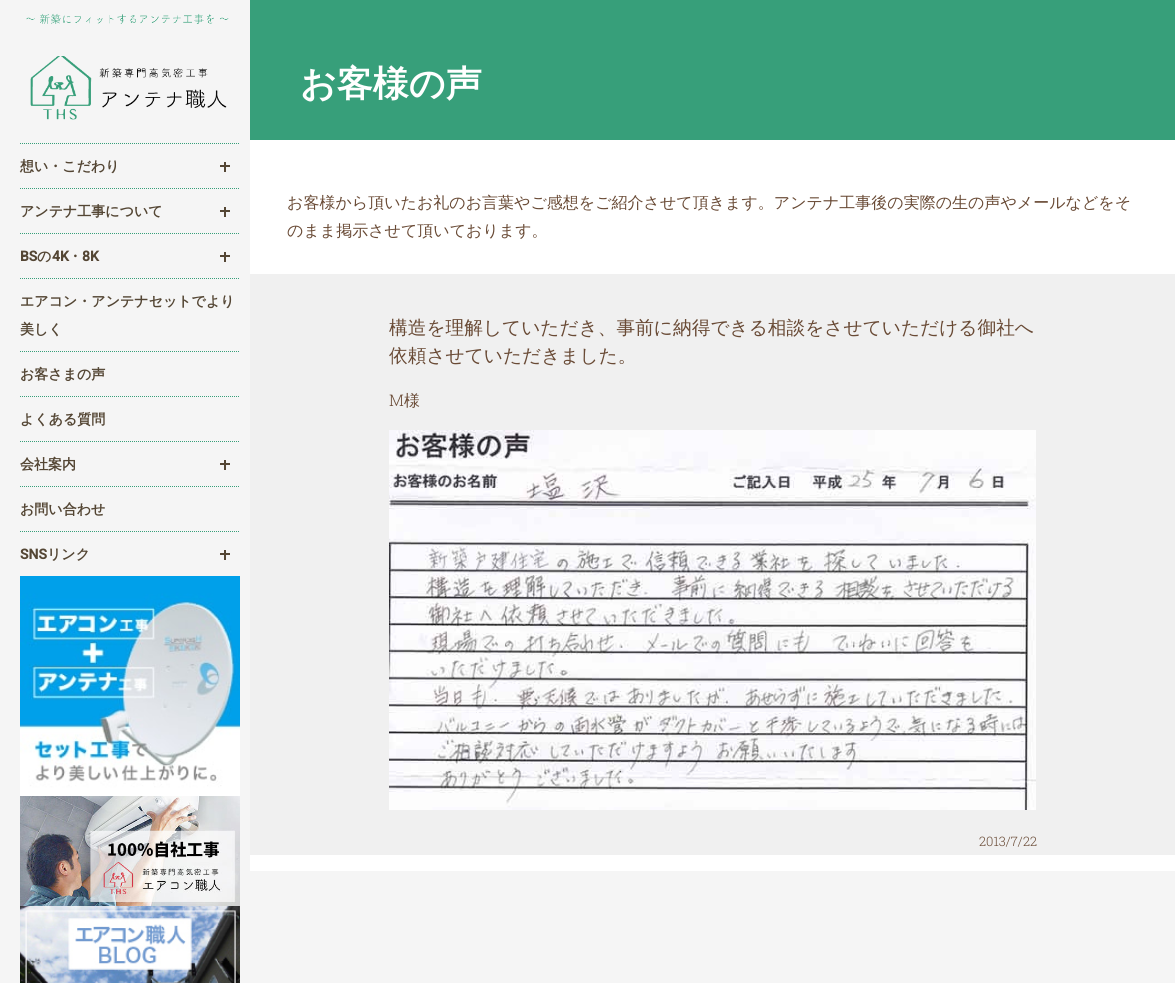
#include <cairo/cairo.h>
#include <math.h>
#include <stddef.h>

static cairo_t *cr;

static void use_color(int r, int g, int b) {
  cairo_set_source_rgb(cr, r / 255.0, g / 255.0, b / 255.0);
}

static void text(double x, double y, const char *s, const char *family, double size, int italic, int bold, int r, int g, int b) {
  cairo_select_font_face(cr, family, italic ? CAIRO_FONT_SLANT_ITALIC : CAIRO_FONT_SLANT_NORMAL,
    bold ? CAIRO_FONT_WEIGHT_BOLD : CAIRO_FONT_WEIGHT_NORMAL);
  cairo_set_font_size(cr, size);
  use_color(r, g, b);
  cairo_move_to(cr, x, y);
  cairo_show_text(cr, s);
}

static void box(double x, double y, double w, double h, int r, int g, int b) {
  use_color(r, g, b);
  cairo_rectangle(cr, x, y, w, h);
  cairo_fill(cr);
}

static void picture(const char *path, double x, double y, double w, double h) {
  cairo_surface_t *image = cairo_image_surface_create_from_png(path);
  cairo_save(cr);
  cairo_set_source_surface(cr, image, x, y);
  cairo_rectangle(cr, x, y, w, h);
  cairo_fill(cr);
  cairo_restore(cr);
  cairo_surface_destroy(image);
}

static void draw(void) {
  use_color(245, 245, 245);
  cairo_paint(cr);
  picture("img_01.png", 26, 13, 203, 11);
  picture("img_02.png", 30, 56, 197, 64);
  cairo_new_path(cr);
  cairo_move_to(cr, 20, 143.5);
  cairo_line_to(cr, 240, 143.5);
  use_color(55, 159, 122);
  cairo_set_line_width(cr, 1);
  cairo_set_dash(cr, (double[]){1, 1}, 2, 0);
  cairo_stroke(cr);
  box(220, 165, 10, 2, 84, 70, 52);
  box(224, 162, 2, 10, 84, 70, 52);
  cairo_new_path(cr);
  cairo_move_to(cr, 20, 188.5);
  cairo_line_to(cr, 240, 188.5);
  use_color(55, 159, 122);
  cairo_stroke(cr);
  box(220, 210, 10, 2, 84, 70, 52);
  box(224, 207, 2, 10, 84, 70, 52);
  cairo_new_path(cr);
  cairo_move_to(cr, 20, 233.5);
  cairo_line_to(cr, 240, 233.5);
  use_color(55, 159, 122);
  cairo_stroke(cr);
  box(220, 255, 10, 2, 84, 70, 52);
  box(224, 252, 2, 10, 84, 70, 52);
  cairo_new_path(cr);
  cairo_move_to(cr, 20, 278.5);
  cairo_line_to(cr, 240, 278.5);
  use_color(55, 159, 122);
  cairo_stroke(cr);
  cairo_new_path(cr);
  cairo_move_to(cr, 20, 351.5);
  cairo_line_to(cr, 240, 351.5);
  cairo_stroke(cr);
  cairo_new_path(cr);
  cairo_move_to(cr, 20, 396.5);
  cairo_line_to(cr, 240, 396.5);
  cairo_stroke(cr);
  cairo_new_path(cr);
  cairo_move_to(cr, 20, 441.5);
  cairo_line_to(cr, 240, 441.5);
  cairo_stroke(cr);
  box(220, 463, 10, 2, 84, 70, 52);
  box(224, 460, 2, 10, 84, 70, 52);
  cairo_new_path(cr);
  cairo_move_to(cr, 20, 486.5);
  cairo_line_to(cr, 240, 486.5);
  use_color(55, 159, 122);
  cairo_stroke(cr);
  cairo_new_path(cr);
  cairo_move_to(cr, 20, 531.5);
  cairo_line_to(cr, 240, 531.5);
  cairo_stroke(cr);
  box(220, 553, 10, 2, 84, 70, 52);
  box(224, 550, 2, 10, 84, 70, 52);
  picture("img_03.png", 20, 576, 220, 220);
  picture("img_04.png", 20, 796, 220, 110);
  picture("img_05.png", 20, 906, 220, 77);
  box(250, 140, 925, 731, 255, 255, 255);
  box(250, 0, 925, 140, 55, 159, 122);
  box(250, 274, 925, 581, 240, 240, 240);
  picture("img_06.png", 389, 430, 647, 380);
  text(20, 171, "想い・こだわり", "WenQuanYi Zen Hei", 14, 0, 1, 84, 70, 52);
  text(20, 216, "アンテナ工事について", "WenQuanYi Zen Hei", 14, 0, 1, 84, 70, 52);
  text(20, 261, "BS", "Roboto", 14, 0, 1, 84, 70, 52);
  text(37, 261, "の", "WenQuanYi Zen Hei", 14, 0, 1, 84, 70, 52);
  text(52, 261, "4K", "Roboto", 14, 0, 1, 84, 70, 52);
  text(68, 261, "・", "WenQuanYi Zen Hei", 14, 0, 1, 84, 70, 52);
  text(82, 261, "8K", "Roboto", 14, 0, 1, 84, 70, 52);
  text(20, 306, "エアコン・アンテナセットでより", "WenQuanYi Zen Hei", 14, 0, 1, 84, 70, 52);
  text(20, 334, "美しく", "WenQuanYi Zen Hei", 14, 0, 1, 84, 70, 52);
  text(20, 379, "お客さまの声", "WenQuanYi Zen Hei", 14, 0, 1, 84, 70, 52);
  text(20, 424, "よくある質問", "WenQuanYi Zen Hei", 14, 0, 1, 84, 70, 52);
  text(20, 469, "会社案内", "WenQuanYi Zen Hei", 14, 0, 1, 84, 70, 52);
  text(20, 514, "お問い合わせ", "WenQuanYi Zen Hei", 14, 0, 1, 84, 70, 52);
  text(20, 559, "SNS", "Roboto", 14, 0, 1, 84, 70, 52);
  text(47, 559, "リンク", "WenQuanYi Zen Hei", 14, 0, 1, 84, 70, 52);
  text(300, 96, "お客様の声", "WenQuanYi Zen Hei", 36, 0, 1, 255, 255, 255);
  text(287, 208, "お客様から頂いたお礼のお言葉やご感想をご紹介させて頂きます。アンテナ工事後の実際の生の声やメールなどをそ", "WenQuanYi Zen Hei Medium", 16, 0, 0, 105, 74, 53);
  text(287, 236, "のまま掲示させて頂いております。", "WenQuanYi Zen Hei Medium", 16, 0, 0, 105, 74, 53);
  text(389, 334, "構造を理解していただき、事前に納得できる相談をさせていただける御社へ", "WenQuanYi Zen Hei Medium", 18.7, 0, 0, 105, 74, 53);
  text(389, 362, "依頼させていただきました。", "WenQuanYi Zen Hei Medium", 18.7, 0, 0, 105, 74, 53);
  text(389, 406, "M", "Roboto Slab Light", 16, 0, 0, 105, 74, 53);
  text(404, 406, "様", "WenQuanYi Zen Hei Medium", 16, 0, 0, 105, 74, 53);
  text(979, 846, "2013/7/22", "Roboto Slab Light", 13, 0, 0, 105, 74, 53);
}

int main(void) {
  cairo_surface_t *surface = cairo_image_surface_create(CAIRO_FORMAT_RGB24, 1175, 983);
  cr = cairo_create(surface);
  cairo_font_options_t *options = cairo_font_options_create();
  cairo_font_options_set_hint_metrics(options, CAIRO_HINT_METRICS_OFF);
  cairo_font_options_set_hint_style(options, CAIRO_HINT_STYLE_NONE);
  cairo_set_font_options(cr, options);
  cairo_set_miter_limit(cr, 4);
  draw();
  cairo_surface_write_to_png(surface, "out.png");
  cairo_font_options_destroy(options);
  cairo_destroy(cr);
  cairo_surface_destroy(surface);
  return 0;
}
